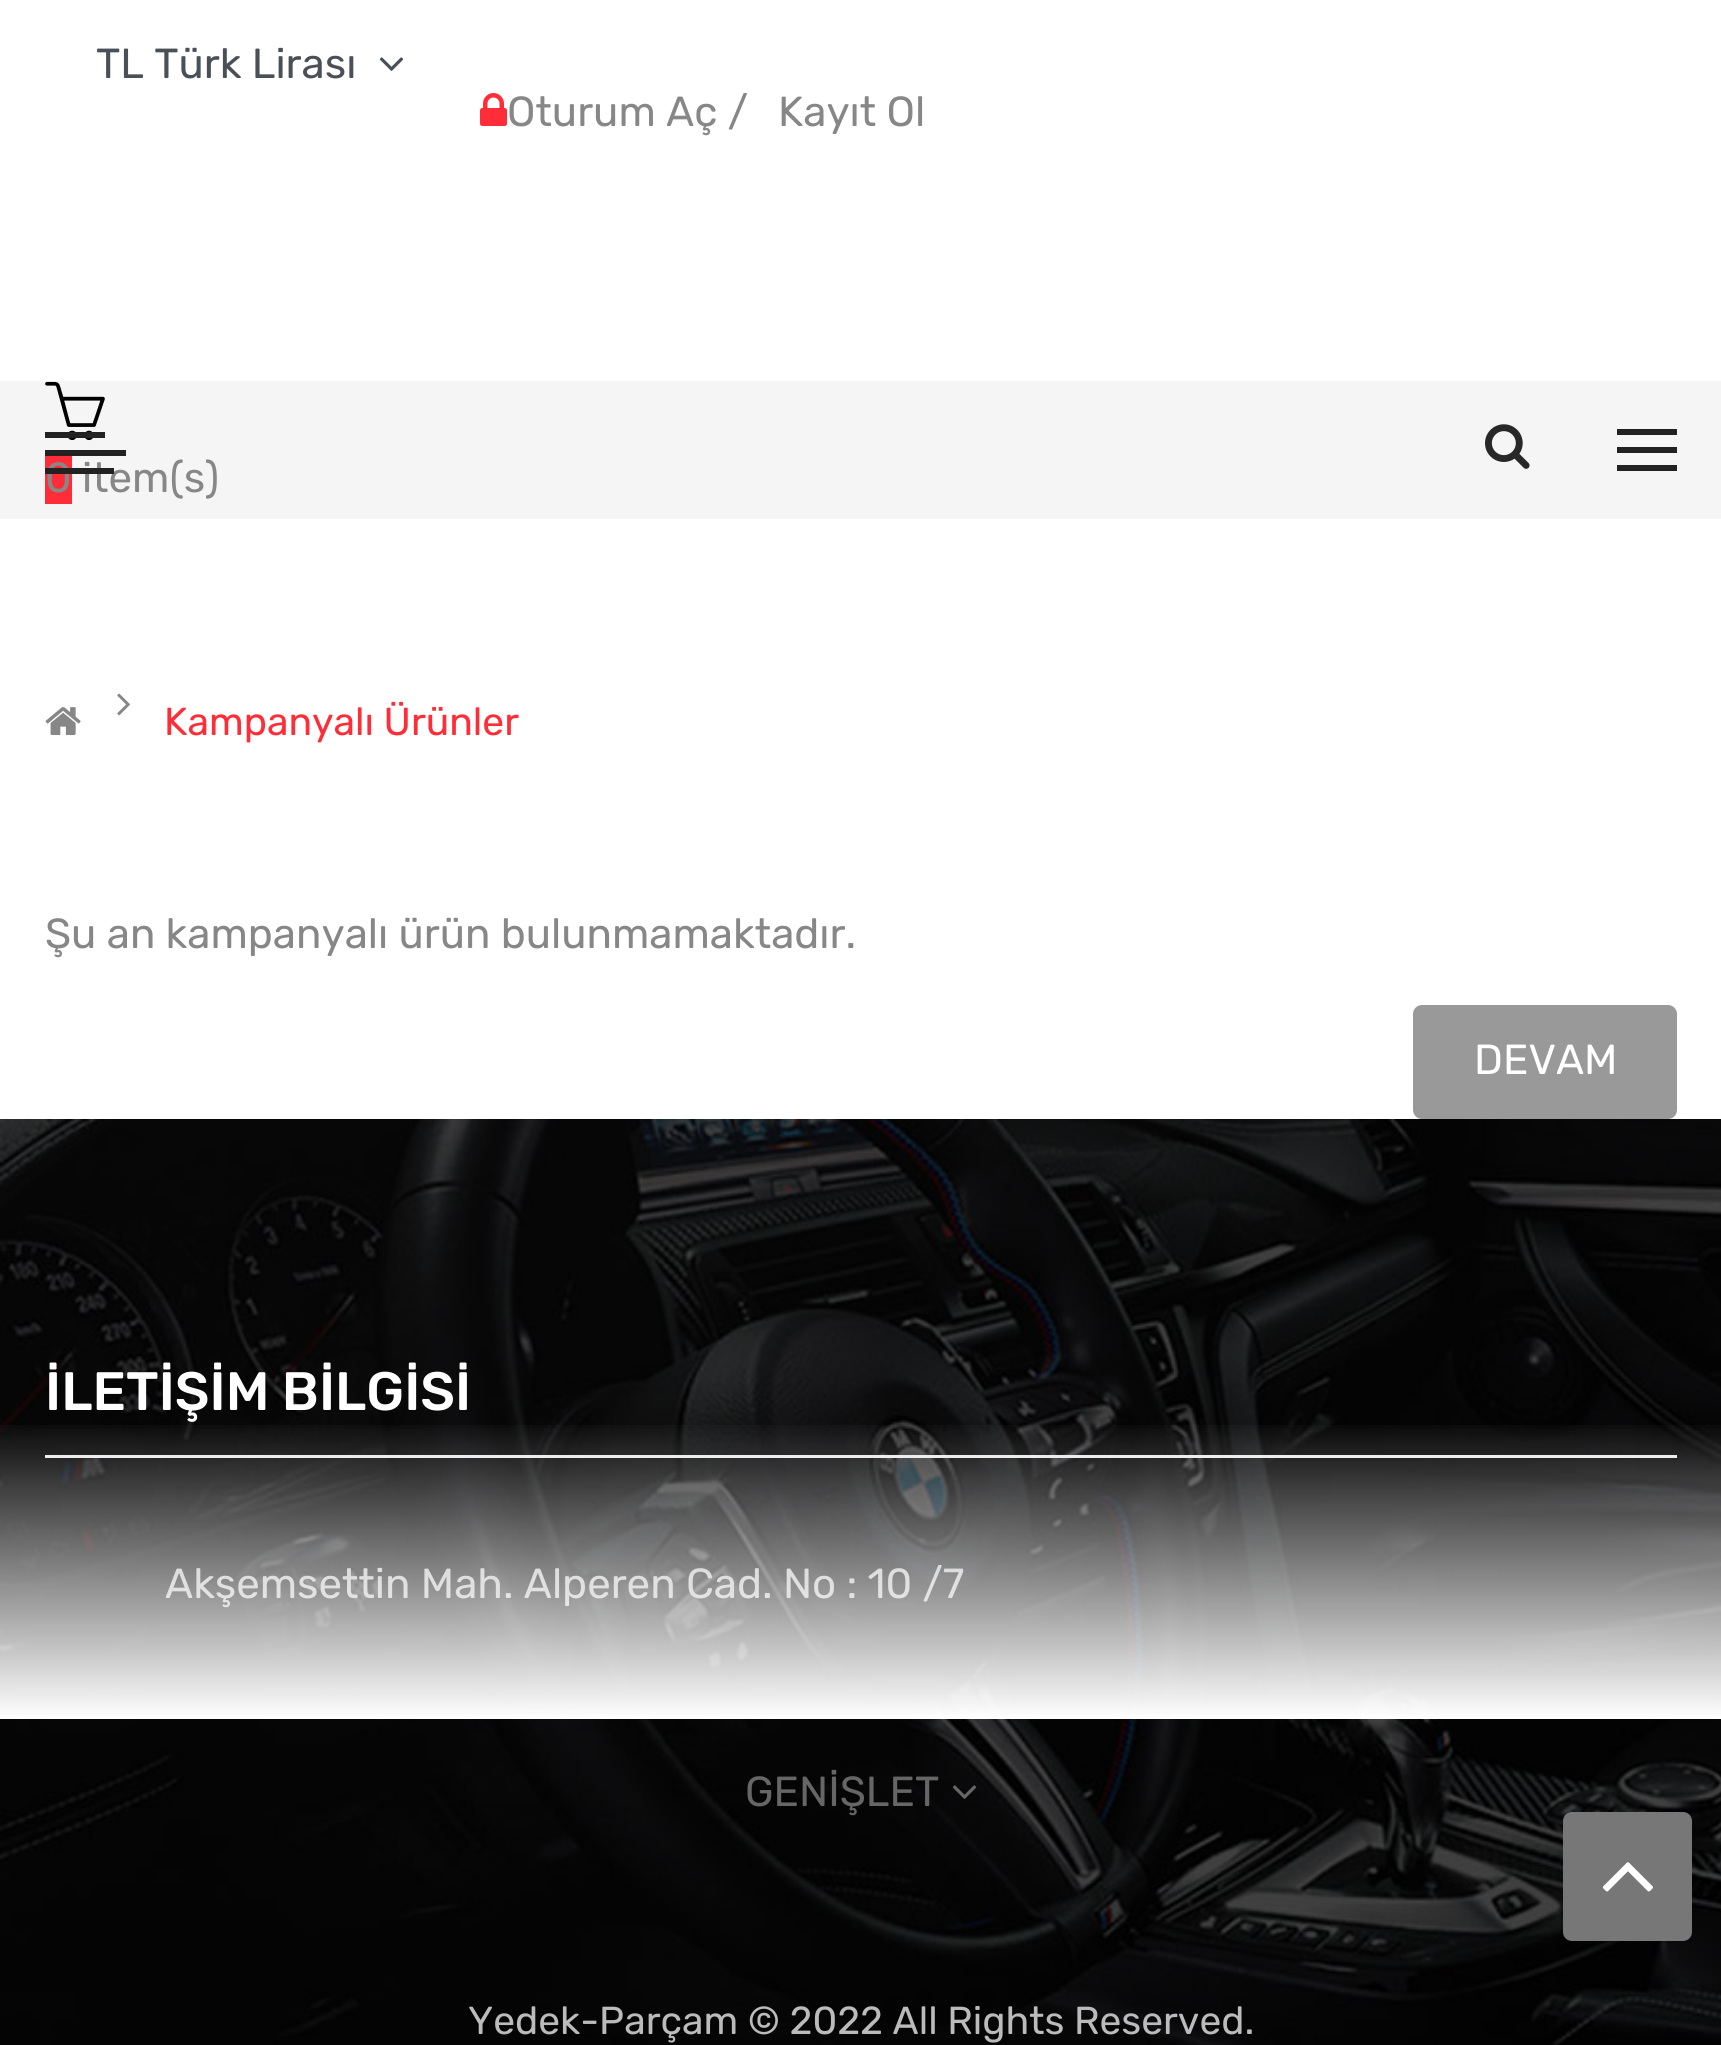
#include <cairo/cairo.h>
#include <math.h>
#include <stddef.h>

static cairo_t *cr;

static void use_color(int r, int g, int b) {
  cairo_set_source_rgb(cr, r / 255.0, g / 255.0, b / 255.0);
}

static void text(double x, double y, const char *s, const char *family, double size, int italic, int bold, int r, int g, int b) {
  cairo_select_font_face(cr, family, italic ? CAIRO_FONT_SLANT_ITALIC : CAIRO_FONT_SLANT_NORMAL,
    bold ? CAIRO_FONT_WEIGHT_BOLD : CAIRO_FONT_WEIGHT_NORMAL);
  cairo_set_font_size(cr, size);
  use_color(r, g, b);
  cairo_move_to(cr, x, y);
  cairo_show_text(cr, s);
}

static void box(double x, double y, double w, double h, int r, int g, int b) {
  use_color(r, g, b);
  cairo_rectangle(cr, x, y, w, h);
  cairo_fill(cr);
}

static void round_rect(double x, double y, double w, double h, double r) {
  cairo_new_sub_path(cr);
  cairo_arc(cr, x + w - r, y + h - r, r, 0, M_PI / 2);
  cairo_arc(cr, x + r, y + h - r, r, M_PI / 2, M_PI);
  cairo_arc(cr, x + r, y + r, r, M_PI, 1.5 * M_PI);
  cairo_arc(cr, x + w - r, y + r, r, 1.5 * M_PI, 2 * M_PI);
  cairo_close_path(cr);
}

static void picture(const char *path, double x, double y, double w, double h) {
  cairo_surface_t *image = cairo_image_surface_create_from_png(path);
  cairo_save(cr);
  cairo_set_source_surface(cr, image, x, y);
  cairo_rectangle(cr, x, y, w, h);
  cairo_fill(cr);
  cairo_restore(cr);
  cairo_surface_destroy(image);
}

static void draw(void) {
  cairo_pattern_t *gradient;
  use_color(255, 255, 255);
  cairo_paint(cr);
  picture("img_01.png", 379, 57, 25, 14);
  picture("img_02.png", 480, 93, 27, 33);
  box(0, 381, 1721, 138, 245, 245, 245);
  picture("img_04.png", 45, 381, 60, 60);
  box(45, 432, 60, 6, 34, 34, 34);
  box(45, 450, 81, 6, 34, 34, 34);
  box(1617, 429, 60, 6, 34, 34, 34);
  box(1617, 447, 60, 6, 34, 34, 34);
  box(1617, 465, 60, 6, 34, 34, 34);
  picture("img_03.png", 1485, 424, 45, 45);
  box(45, 456, 27, 48, 255, 45, 55);
  picture("img_05.png", 117, 693, 13, 23);
  picture("img_06.png", 45, 707, 36, 28);
  use_color(153, 153, 153);
  round_rect(1413, 1005, 264, 114, 9);
  cairo_fill(cr);
  picture("img_07.png", 0, 1119, 1721, 926);
  box(45, 1455, 1632, 3, 235, 235, 235);
  picture("img_08.png", 952, 1785, 25, 14);
  use_color(119, 119, 119);
  round_rect(1563, 1812, 129, 129, 9);
  cairo_fill(cr);
  picture("img_09.png", 1602, 1862, 51, 30);
  text(96, 78, "TL Türk Lirası", "Rubik", 42, 0, 0, 73, 80, 87);
  text(507, 126, "Oturum Aç /", "Rubik", 42, 0, 0, 135, 135, 135);
  text(778, 126, "Kayıt Ol", "Rubik", 42, 0, 0, 135, 135, 135);
  text(45, 492, "0 item(s)", "Rubik", 42, 0, 0, 135, 135, 135);
  box(45, 468, 69, 6, 34, 34, 34);
  text(164, 735, "Kampanyalı Ürünler", "Rubik", 39, 0, 0, 255, 45, 55);
  text(45, 948, "Şu an kampanyalı ürün bulunmamaktadır.", "Rubik", 42, 0, 0, 135, 135, 135);
  text(1474, 1074, "DEVAM", "Rubik", 42, 0, 0, 255, 255, 255);
  text(45, 1410, "İLETİŞİM BİLGİSİ", "Rubik Medium", 54, 0, 0, 255, 255, 255);
  text(165, 1598, "Akşemsettin Mah. Alperen Cad. No : 10 /7", "Rubik", 42, 0, 0, 187, 187, 187);
  gradient = cairo_pattern_create_linear(861, 1119, 861, 1719);
  cairo_pattern_add_color_stop_rgba(gradient, 0.5, 1, 1, 1, 0);
  cairo_pattern_add_color_stop_rgba(gradient, 1, 1, 1, 1, 1);
  cairo_set_source(cr, gradient);
  cairo_pattern_destroy(gradient);
  cairo_rectangle(cr, 0, 1425, 1721, 294);
  cairo_fill(cr);
  text(745, 1806, "GENİŞLET", "Rubik", 42, 0, 0, 102, 102, 102);
  text(468, 2034, "Yedek-Parçam © 2022 All Rights Reserved.", "Rubik", 39, 0, 0, 187, 187, 187);
}

int main(void) {
  cairo_surface_t *surface = cairo_image_surface_create(CAIRO_FORMAT_RGB24, 1721, 2045);
  cr = cairo_create(surface);
  cairo_font_options_t *options = cairo_font_options_create();
  cairo_font_options_set_hint_metrics(options, CAIRO_HINT_METRICS_OFF);
  cairo_font_options_set_hint_style(options, CAIRO_HINT_STYLE_NONE);
  cairo_set_font_options(cr, options);
  cairo_set_miter_limit(cr, 4);
  draw();
  cairo_surface_write_to_png(surface, "out.png");
  cairo_font_options_destroy(options);
  cairo_destroy(cr);
  cairo_surface_destroy(surface);
  return 0;
}
